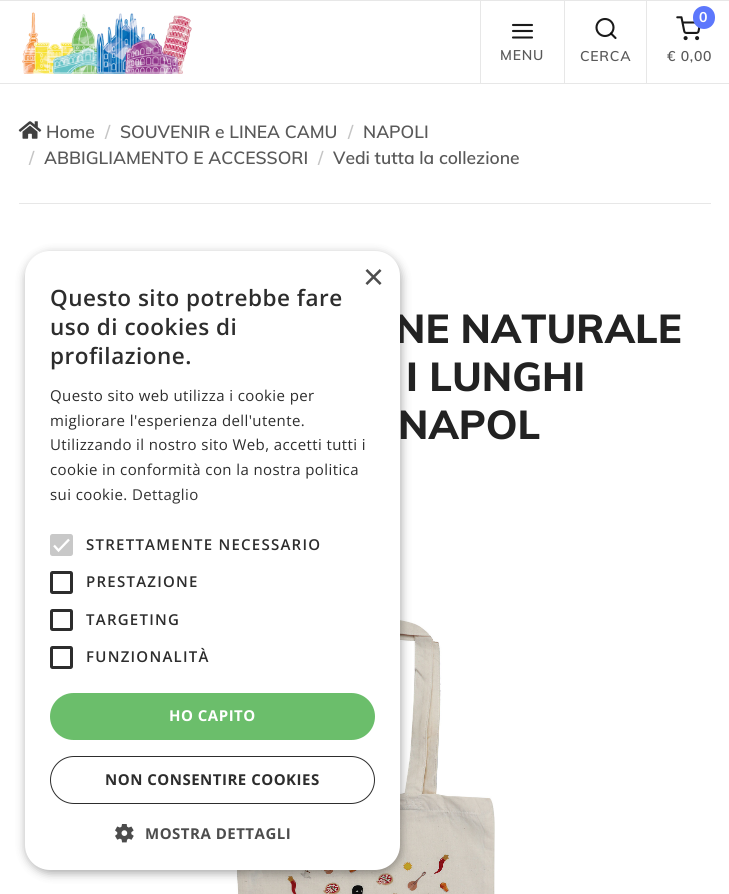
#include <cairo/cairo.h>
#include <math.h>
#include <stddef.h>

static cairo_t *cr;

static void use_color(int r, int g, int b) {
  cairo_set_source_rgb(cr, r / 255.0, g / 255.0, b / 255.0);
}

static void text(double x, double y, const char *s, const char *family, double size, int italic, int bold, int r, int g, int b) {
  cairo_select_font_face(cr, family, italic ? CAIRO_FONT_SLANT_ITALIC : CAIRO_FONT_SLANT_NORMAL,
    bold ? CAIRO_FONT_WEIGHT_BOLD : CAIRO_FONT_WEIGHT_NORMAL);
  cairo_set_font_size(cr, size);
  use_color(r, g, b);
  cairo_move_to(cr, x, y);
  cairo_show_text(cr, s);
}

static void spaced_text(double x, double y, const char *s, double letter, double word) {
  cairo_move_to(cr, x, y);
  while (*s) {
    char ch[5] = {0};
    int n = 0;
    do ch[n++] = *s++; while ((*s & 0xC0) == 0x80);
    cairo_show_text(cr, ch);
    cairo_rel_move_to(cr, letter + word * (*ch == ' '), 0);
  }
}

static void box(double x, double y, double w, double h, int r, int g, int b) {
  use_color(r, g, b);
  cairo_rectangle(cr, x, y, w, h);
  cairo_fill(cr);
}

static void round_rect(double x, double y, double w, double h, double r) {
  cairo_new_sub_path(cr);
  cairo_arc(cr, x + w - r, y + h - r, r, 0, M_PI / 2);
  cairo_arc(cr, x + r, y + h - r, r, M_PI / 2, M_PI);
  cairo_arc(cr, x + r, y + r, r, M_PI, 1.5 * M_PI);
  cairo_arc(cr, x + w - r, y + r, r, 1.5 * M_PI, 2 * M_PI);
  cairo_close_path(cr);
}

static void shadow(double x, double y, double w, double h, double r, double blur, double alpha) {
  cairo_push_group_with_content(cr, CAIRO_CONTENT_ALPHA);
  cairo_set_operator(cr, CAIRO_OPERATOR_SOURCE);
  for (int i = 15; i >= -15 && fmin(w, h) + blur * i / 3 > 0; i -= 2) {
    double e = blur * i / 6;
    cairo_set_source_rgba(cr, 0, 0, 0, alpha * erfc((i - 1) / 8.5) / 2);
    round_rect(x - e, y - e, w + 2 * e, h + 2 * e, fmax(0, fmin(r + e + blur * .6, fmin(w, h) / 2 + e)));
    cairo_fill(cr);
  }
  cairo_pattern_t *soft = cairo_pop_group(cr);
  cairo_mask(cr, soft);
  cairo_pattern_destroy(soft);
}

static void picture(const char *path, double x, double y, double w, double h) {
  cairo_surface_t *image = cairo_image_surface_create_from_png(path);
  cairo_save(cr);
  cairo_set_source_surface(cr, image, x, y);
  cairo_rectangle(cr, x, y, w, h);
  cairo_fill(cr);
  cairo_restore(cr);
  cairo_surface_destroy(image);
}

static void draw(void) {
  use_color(255, 255, 255);
  cairo_paint(cr);
  box(0, 0, 729, 1, 231, 231, 231);
  box(0, 83, 729, 1, 231, 231, 231);
  picture("img_01.png", 22, 12, 170, 62);
  box(480, 1, 1, 82, 231, 231, 231);
  cairo_new_path(cr);
  cairo_move_to(cr, 513, 31);
  cairo_line_to(cr, 532, 31);
  cairo_move_to(cr, 513, 25);
  cairo_line_to(cr, 532, 25);
  cairo_move_to(cr, 513, 37.5);
  cairo_line_to(cr, 532, 37.5);
  use_color(26, 26, 26);
  cairo_set_line_width(cr, 2.1);
  cairo_set_line_cap(cr, CAIRO_LINE_CAP_ROUND);
  cairo_set_line_join(cr, CAIRO_LINE_JOIN_ROUND);
  cairo_stroke(cr);
  box(564, 1, 1, 82, 231, 231, 231);
  cairo_arc(cr, 605, 27.5, 8.5, 0, 2 * M_PI);
  use_color(26, 26, 26);
  cairo_set_line_cap(cr, CAIRO_LINE_CAP_BUTT);
  cairo_set_line_join(cr, CAIRO_LINE_JOIN_MITER);
  cairo_stroke(cr);
  cairo_new_path(cr);
  cairo_move_to(cr, 615.5, 38);
  cairo_line_to(cr, 611, 33.5);
  cairo_set_source_rgba(cr, 0, 0, 0, 0.9);
  cairo_set_line_cap(cr, CAIRO_LINE_CAP_ROUND);
  cairo_set_line_join(cr, CAIRO_LINE_JOIN_ROUND);
  cairo_stroke(cr);
  box(646, 1, 1, 82, 231, 231, 231);
  picture("img_02.png", 676, 16, 25, 25);
  use_color(92, 119, 252);
  round_rect(693, 6, 22, 23, 11);
  cairo_fill(cr);
  picture("img_03.png", 18, 121, 24, 18);
  box(19, 203, 692, 1, 231, 231, 231);
  picture("img_04.png", 235, 617, 260, 277);
  use_color(0, 0, 0);
  shadow(26, 254, 375, 619, 25, 5, 0.35);
  cairo_select_font_face(cr, "Muli SemiBold", CAIRO_FONT_SLANT_NORMAL, CAIRO_FONT_WEIGHT_NORMAL);
  cairo_set_font_size(cr, 14);
  use_color(89, 89, 89);
  spaced_text(500, 60, "MENU", 0.75, 0);
  spaced_text(580, 61, "CERCA", 0.75, 0);
  cairo_select_font_face(cr, "Muli", CAIRO_FONT_SLANT_NORMAL, CAIRO_FONT_WEIGHT_BOLD);
  use_color(255, 255, 255);
  spaced_text(699, 22, "0", 0.75, 0);
  cairo_select_font_face(cr, "Muli SemiBold", CAIRO_FONT_SLANT_NORMAL, CAIRO_FONT_WEIGHT_NORMAL);
  use_color(89, 89, 89);
  spaced_text(667, 61, "€ 0,00", 0.75, 0);
  text(46, 138, "Home", "Muli SemiBold", 17.5, 0, 0, 89, 89, 89);
  text(105, 138, "/", "Muli SemiBold", 17.5, 0, 0, 197, 197, 197);
  text(120, 138, "SOUVENIR e LINEA CAMU", "Muli SemiBold", 17.5, 0, 0, 89, 89, 89);
  text(348, 138, "/", "Muli SemiBold", 17.5, 0, 0, 197, 197, 197);
  text(363, 138, "NAPOLI", "Muli SemiBold", 17.5, 0, 0, 89, 89, 89);
  text(29, 164, "/", "Muli SemiBold", 17.5, 0, 0, 197, 197, 197);
  text(44, 164, "ABBIGLIAMENTO E ACCESSORI", "Muli SemiBold", 17.5, 0, 0, 89, 89, 89);
  text(318, 164, "/", "Muli SemiBold", 17.5, 0, 0, 197, 197, 197);
  text(333, 164, "Vedi tutta la collezione", "Muli SemiBold", 17.5, 0, 0, 89, 89, 89);
  text(395, 343, "NE NATURALE", "Muli ExtraBold", 40, 0, 0, 34, 34, 34);
  text(406, 391, "I LUNGHI", "Muli ExtraBold", 40, 0, 0, 34, 34, 34);
  text(398, 439, "NAPOL", "Muli ExtraBold", 40, 0, 0, 34, 34, 34);
  use_color(255, 255, 255);
  round_rect(25, 251, 375, 619, 25);
  cairo_fill(cr);
  text(363, 289, "×", "Liberation Sans", 36, 0, 0, 77, 77, 77);
  cairo_select_font_face(cr, "Open Sans SemiBold", CAIRO_FONT_SLANT_NORMAL, CAIRO_FONT_WEIGHT_NORMAL);
  cairo_set_font_size(cr, 22.5);
  use_color(45, 45, 45);
  spaced_text(50, 306, "Questo sito potrebbe fare", 0.5, 0);
  spaced_text(50, 335, "uso di cookies di", 0.5, 0);
  spaced_text(50, 364, "profilazione.", 0.5, 0);
  cairo_select_font_face(cr, "Open Sans", CAIRO_FONT_SLANT_NORMAL, CAIRO_FONT_WEIGHT_NORMAL);
  cairo_set_font_size(cr, 15);
  spaced_text(50, 401, "Questo sito web utilizza i cookie per", 0.4, 0);
  spaced_text(50, 426, "migliorare l'esperienza dell'utente.", 0.4, 0);
  spaced_text(50, 450, "Utilizzando il nostro sito Web, accetti tutti i", 0.4, 0);
  spaced_text(50, 475, "cookie in conformità con la nostra politica", 0.4, 0);
  spaced_text(50, 500, "sui cookie.", 0.4, 0);
  use_color(51, 51, 51);
  spaced_text(132, 500, "Dettaglio", 0.4, 0);
  use_color(200, 200, 200);
  round_rect(50, 534, 23, 22, 2.5);
  cairo_fill(cr);
  cairo_new_path(cr);
  cairo_move_to(cr, 54, 545.5);
  cairo_line_to(cr, 58.5, 550.5);
  cairo_line_to(cr, 69, 539.5);
  use_color(255, 255, 255);
  cairo_set_line_width(cr, 2.3);
  cairo_set_line_cap(cr, CAIRO_LINE_CAP_BUTT);
  cairo_set_line_join(cr, CAIRO_LINE_JOIN_MITER);
  cairo_stroke(cr);
  cairo_select_font_face(cr, "Open Sans SemiBold", CAIRO_FONT_SLANT_NORMAL, CAIRO_FONT_WEIGHT_NORMAL);
  use_color(45, 45, 45);
  spaced_text(86, 550, "STRETTAMENTE NECESSARIO", 1.25, 0);
  round_rect(51.5, 572.5, 20, 20, 1);
  cairo_set_line_width(cr, 3);
  cairo_stroke(cr);
  spaced_text(86, 587, "PRESTAZIONE", 1.25, 0);
  round_rect(51.5, 610.5, 20, 19, 1);
  cairo_stroke(cr);
  spaced_text(86, 625, "TARGETING", 1.25, 0);
  round_rect(51.5, 647.5, 20, 20, 1);
  cairo_stroke(cr);
  spaced_text(86, 662, "FUNZIONALITÀ", 1.25, 0);
  use_color(107, 190, 107);
  round_rect(50, 693, 325, 47, 23.5);
  cairo_fill(cr);
  cairo_select_font_face(cr, "Open Sans", CAIRO_FONT_SLANT_NORMAL, CAIRO_FONT_WEIGHT_BOLD);
  use_color(255, 255, 255);
  spaced_text(169, 721, "HO CAPITO", 0.5, 0);
  round_rect(50.5, 756.5, 324, 47, 23.5);
  use_color(45, 45, 45);
  cairo_set_line_width(cr, 1);
  cairo_stroke(cr);
  spaced_text(105, 785, "NON CONSENTIRE COOKIES", 0.5, 0);
  picture("img_05.png", 115, 824, 19, 19);
  use_color(77, 77, 77);
  spaced_text(145, 839, "MOSTRA DETTAGLI", 0.5, 0);
}

int main(void) {
  cairo_surface_t *surface = cairo_image_surface_create(CAIRO_FORMAT_RGB24, 729, 894);
  cr = cairo_create(surface);
  cairo_font_options_t *options = cairo_font_options_create();
  cairo_font_options_set_hint_metrics(options, CAIRO_HINT_METRICS_OFF);
  cairo_font_options_set_hint_style(options, CAIRO_HINT_STYLE_NONE);
  cairo_set_font_options(cr, options);
  cairo_set_miter_limit(cr, 4);
  draw();
  cairo_surface_write_to_png(surface, "out.png");
  cairo_font_options_destroy(options);
  cairo_destroy(cr);
  cairo_surface_destroy(surface);
  return 0;
}
